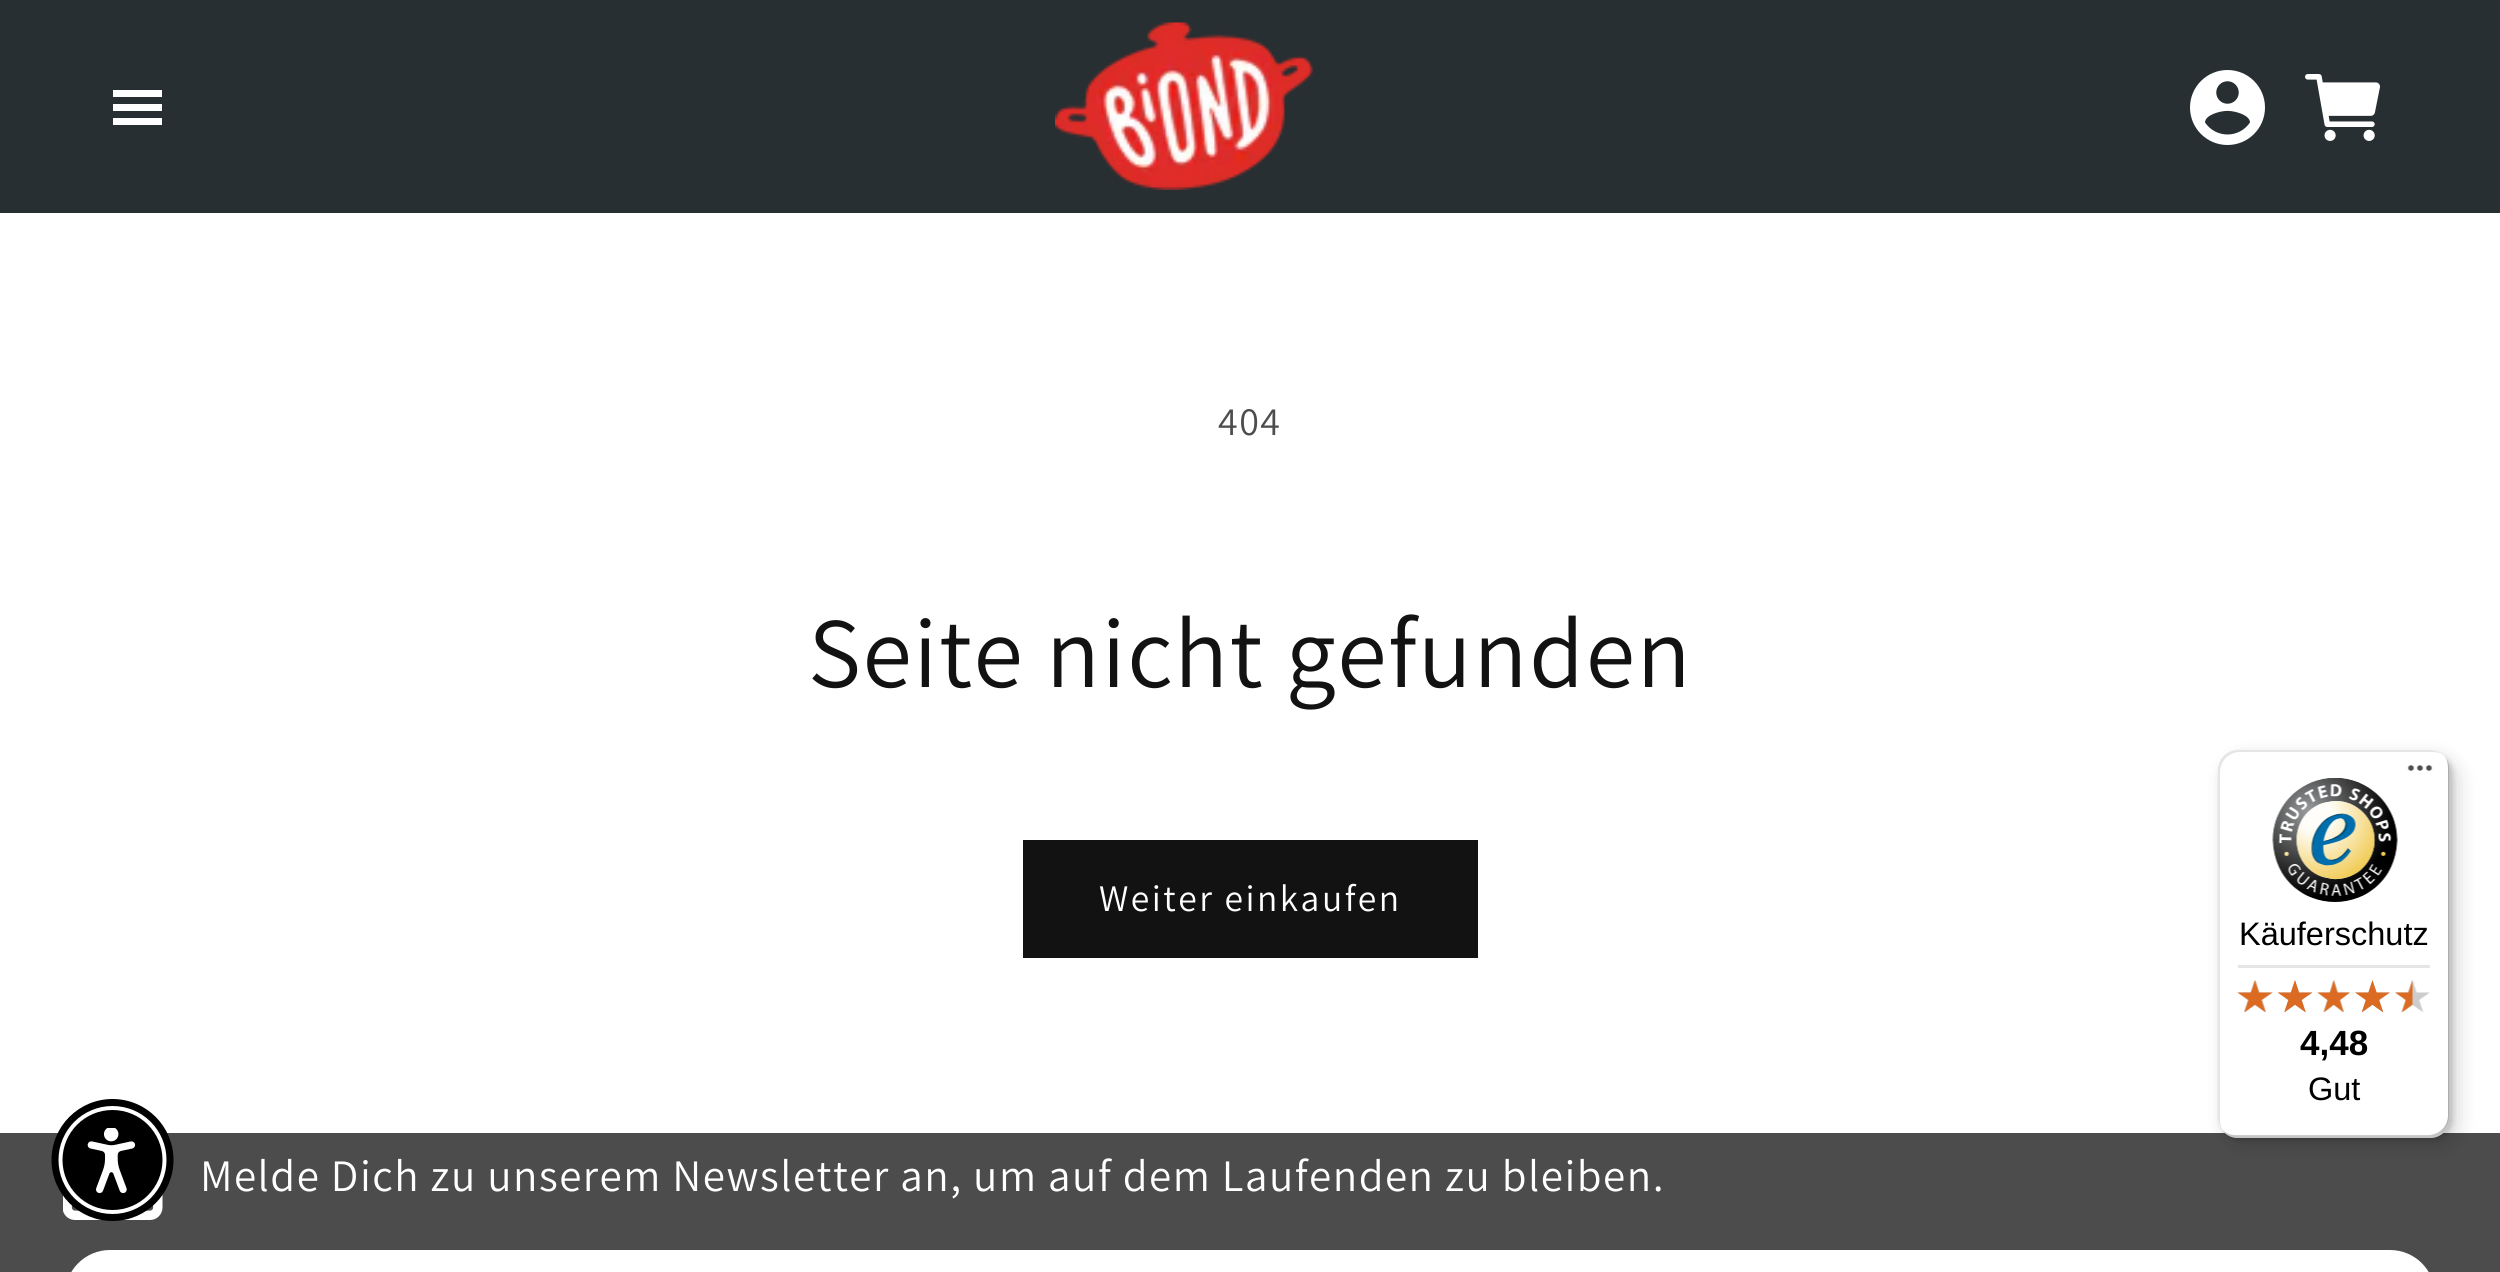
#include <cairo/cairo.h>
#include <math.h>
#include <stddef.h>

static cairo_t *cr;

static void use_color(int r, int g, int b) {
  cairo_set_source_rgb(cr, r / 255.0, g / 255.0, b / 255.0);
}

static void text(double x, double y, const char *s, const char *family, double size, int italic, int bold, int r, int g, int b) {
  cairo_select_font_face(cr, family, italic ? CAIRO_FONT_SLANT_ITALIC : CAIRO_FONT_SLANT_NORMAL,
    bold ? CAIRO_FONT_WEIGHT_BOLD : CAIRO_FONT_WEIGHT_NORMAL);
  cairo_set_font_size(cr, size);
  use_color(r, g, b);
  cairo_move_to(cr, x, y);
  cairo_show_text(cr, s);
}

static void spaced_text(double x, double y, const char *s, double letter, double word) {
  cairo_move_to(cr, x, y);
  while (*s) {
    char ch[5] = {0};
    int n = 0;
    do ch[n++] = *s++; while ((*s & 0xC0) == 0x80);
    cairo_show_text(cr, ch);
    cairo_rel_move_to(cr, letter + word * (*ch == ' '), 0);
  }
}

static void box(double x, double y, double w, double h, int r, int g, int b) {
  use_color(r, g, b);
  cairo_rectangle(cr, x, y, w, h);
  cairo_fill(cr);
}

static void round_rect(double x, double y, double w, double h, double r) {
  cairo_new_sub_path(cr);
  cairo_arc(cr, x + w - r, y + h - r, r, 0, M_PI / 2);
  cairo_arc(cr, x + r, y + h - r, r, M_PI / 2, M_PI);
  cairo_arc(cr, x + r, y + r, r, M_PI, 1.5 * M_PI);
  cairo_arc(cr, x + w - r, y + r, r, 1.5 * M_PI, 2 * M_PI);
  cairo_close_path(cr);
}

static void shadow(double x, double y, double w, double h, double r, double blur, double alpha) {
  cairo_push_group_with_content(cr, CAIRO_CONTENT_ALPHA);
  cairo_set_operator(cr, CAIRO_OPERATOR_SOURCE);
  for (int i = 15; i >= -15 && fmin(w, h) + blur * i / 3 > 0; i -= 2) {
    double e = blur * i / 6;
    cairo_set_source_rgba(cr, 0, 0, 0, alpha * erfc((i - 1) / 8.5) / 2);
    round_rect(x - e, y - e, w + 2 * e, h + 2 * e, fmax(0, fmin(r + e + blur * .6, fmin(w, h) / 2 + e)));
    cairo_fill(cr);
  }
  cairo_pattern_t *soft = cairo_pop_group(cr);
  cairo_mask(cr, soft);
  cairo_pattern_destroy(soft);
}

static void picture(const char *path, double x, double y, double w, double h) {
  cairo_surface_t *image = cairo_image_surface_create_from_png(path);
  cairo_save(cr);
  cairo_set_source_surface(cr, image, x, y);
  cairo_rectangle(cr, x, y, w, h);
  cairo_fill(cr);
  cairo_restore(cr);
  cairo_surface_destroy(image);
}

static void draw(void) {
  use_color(255, 255, 255);
  cairo_paint(cr);
  box(0, 0, 2500, 213, 39, 47, 50);
  cairo_save(cr);
  cairo_rectangle(cr, 113, 83, 50, 50);
  cairo_clip(cr);
  use_color(255, 255, 255);
  cairo_new_path(cr);
  cairo_move_to(cr, 112, 125);
  cairo_line_to(cr, 162, 125);
  cairo_line_to(cr, 162, 118);
  cairo_line_to(cr, 112, 118);
  cairo_close_path(cr);
  cairo_move_to(cr, 112, 90);
  cairo_line_to(cr, 112, 97);
  cairo_line_to(cr, 162, 97);
  cairo_line_to(cr, 162, 90);
  cairo_close_path(cr);
  cairo_move_to(cr, 112, 111);
  cairo_line_to(cr, 162, 111);
  cairo_line_to(cr, 162, 104);
  cairo_line_to(cr, 112, 104);
  cairo_close_path(cr);
  cairo_fill(cr);
  cairo_restore(cr);
  picture("img_01.png", 1055, 22, 258, 168);
  picture("img_02.png", 2190, 70, 75, 75);
  picture("img_03.png", 2305, 74, 75, 67);
  box(1023, 840, 455, 118, 18, 18, 18);
  box(0, 1133, 2500, 139, 77, 76, 76);
  use_color(0, 0, 0);
  shadow(2225, 758, 233, 387, 20, 10, 0.15);
  shadow(2220, 753, 233, 387, 20, 2.5, 0.15);
  use_color(255, 255, 255);
  round_rect(2218, 750, 232, 388, 20);
  cairo_fill(cr);
  use_color(229, 229, 229);
  cairo_new_path(cr);
  cairo_move_to(cr, 2240, 752);
  cairo_line_to(cr, 2432, 752);
  cairo_curve_to(cr, 2437, 752, 2441, 753, 2444, 756);
  cairo_curve_to(cr, 2440, 752, 2435, 750, 2430, 750);
  cairo_line_to(cr, 2238, 750);
  cairo_curve_to(cr, 2227, 750, 2218, 759, 2218, 770);
  cairo_line_to(cr, 2218, 1118);
  cairo_curve_to(cr, 2218, 1124, 2221, 1130, 2225, 1133);
  cairo_curve_to(cr, 2222, 1130, 2220, 1125, 2220, 1120);
  cairo_line_to(cr, 2220, 772);
  cairo_curve_to(cr, 2220, 761, 2229, 752, 2240, 752);
  cairo_close_path(cr);
  cairo_fill(cr);
  cairo_set_source_rgba(cr, 0, 0, 0, 0.2);
  cairo_new_path(cr);
  cairo_move_to(cr, 2222, 1130);
  cairo_curve_to(cr, 2226, 1135, 2232, 1138, 2238, 1138);
  cairo_line_to(cr, 2430, 1138);
  cairo_curve_to(cr, 2441, 1138, 2450, 1129, 2450, 1118);
  cairo_line_to(cr, 2450, 770);
  cairo_curve_to(cr, 2450, 765, 2448, 760, 2444, 756);
  cairo_curve_to(cr, 2447, 759, 2448, 763, 2448, 768);
  cairo_line_to(cr, 2448, 1115);
  cairo_curve_to(cr, 2448, 1126, 2439, 1135, 2428, 1135);
  cairo_line_to(cr, 2235, 1135);
  cairo_curve_to(cr, 2230, 1135, 2226, 1133, 2222, 1130);
  cairo_close_path(cr);
  cairo_fill(cr);
  cairo_set_source_rgba(cr, 0.196, 0.196, 0.196, 0.2);
  cairo_new_path(cr);
  cairo_move_to(cr, 2223, 1131);
  cairo_curve_to(cr, 2226, 1135, 2232, 1138, 2238, 1138);
  cairo_line_to(cr, 2430, 1138);
  cairo_curve_to(cr, 2441, 1138, 2450, 1129, 2450, 1118);
  cairo_line_to(cr, 2450, 770);
  cairo_curve_to(cr, 2450, 765, 2448, 760, 2444, 756);
  cairo_curve_to(cr, 2447, 759, 2448, 763, 2448, 768);
  cairo_line_to(cr, 2448, 1116);
  cairo_curve_to(cr, 2448, 1127, 2440, 1136, 2428, 1136);
  cairo_line_to(cr, 2236, 1136);
  cairo_curve_to(cr, 2231, 1136, 2226, 1134, 2223, 1131);
  cairo_close_path(cr);
  cairo_fill(cr);
  cairo_set_source_rgba(cr, 1, 1, 1, 0.3);
  cairo_new_path(cr);
  cairo_move_to(cr, 2223, 1131);
  cairo_curve_to(cr, 2226, 1135, 2232, 1138, 2238, 1138);
  cairo_line_to(cr, 2430, 1138);
  cairo_curve_to(cr, 2441, 1138, 2450, 1129, 2450, 1118);
  cairo_line_to(cr, 2450, 770);
  cairo_curve_to(cr, 2450, 764, 2447, 759, 2443, 755);
  cairo_curve_to(cr, 2447, 759, 2449, 764, 2449, 769);
  cairo_line_to(cr, 2449, 1116);
  cairo_curve_to(cr, 2449, 1127, 2440, 1136, 2429, 1136);
  cairo_line_to(cr, 2236, 1136);
  cairo_curve_to(cr, 2231, 1136, 2226, 1134, 2223, 1131);
  cairo_close_path(cr);
  cairo_fill(cr);
  picture("img_04.png", 2407, 765, 26, 6);
  picture("img_05.png", 2272, 778, 126, 124);
  box(2238, 965, 192, 3, 229, 229, 229);
  picture("img_06.png", 2237, 980, 36, 32);
  picture("img_07.png", 2278, 980, 34, 32);
  picture("img_08.png", 2317, 980, 33, 32);
  picture("img_09.png", 2355, 980, 35, 32);
  picture("img_10.png", 2395, 980, 35, 32);
  picture("img_11.png", 2237, 980, 36, 32);
  picture("img_12.png", 2278, 980, 34, 33);
  picture("img_13.png", 2317, 980, 33, 32);
  picture("img_14.png", 2355, 980, 35, 33);
  picture("img_15.png", 2395, 980, 18, 32);
  picture("img_17.png", 63, 1194, 100, 26);
  use_color(0, 0, 0);
  cairo_arc(cr, 112.5, 1160, 61, 0, 2 * M_PI);
  cairo_fill(cr);
  use_color(255, 255, 255);
  cairo_arc(cr, 112.5, 1160, 54, 0, 2 * M_PI);
  cairo_fill(cr);
  use_color(0, 0, 0);
  cairo_arc(cr, 112.5, 1160, 50, 0, 2 * M_PI);
  cairo_fill(cr);
  picture("img_16.png", 87, 1128, 49, 66);
  use_color(255, 255, 255);
  round_rect(65, 1250, 2370, 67, 45);
  cairo_fill(cr);
  cairo_select_font_face(cr, "Assistant", CAIRO_FONT_SLANT_NORMAL, CAIRO_FONT_WEIGHT_NORMAL);
  cairo_set_font_size(cr, 40);
  use_color(77, 77, 77);
  spaced_text(1218, 435, "404", 1.5, 0);
  cairo_set_font_size(cr, 100);
  use_color(18, 18, 18);
  spaced_text(808, 687, "Seite nicht gefunden", 1.5, 0);
  cairo_set_font_size(cr, 37.5);
  use_color(255, 255, 255);
  spaced_text(1099, 911, "Weiter einkaufen", 2.5, 0);
  text(2239, 945, "Käuferschutz", "Liberation Sans", 32.5, 0, 0, 0, 0, 0);
  text(2300, 1055, "4,48", "Liberation Sans", 35, 0, 1, 0, 0, 0);
  text(2308, 1100, "Gut", "Liberation Sans", 32.5, 0, 0, 0, 0, 0);
  cairo_select_font_face(cr, "Assistant", CAIRO_FONT_SLANT_NORMAL, CAIRO_FONT_WEIGHT_NORMAL);
  cairo_set_font_size(cr, 45);
  use_color(255, 255, 255);
  spaced_text(200, 1191, "Melde Dich zu unserem Newsletter an, um auf dem Laufenden zu bleiben.", 1.5, 0);
}

int main(void) {
  cairo_surface_t *surface = cairo_image_surface_create(CAIRO_FORMAT_RGB24, 2500, 1272);
  cr = cairo_create(surface);
  cairo_font_options_t *options = cairo_font_options_create();
  cairo_font_options_set_hint_metrics(options, CAIRO_HINT_METRICS_OFF);
  cairo_font_options_set_hint_style(options, CAIRO_HINT_STYLE_NONE);
  cairo_set_font_options(cr, options);
  cairo_set_miter_limit(cr, 4);
  draw();
  cairo_surface_write_to_png(surface, "out.png");
  cairo_font_options_destroy(options);
  cairo_destroy(cr);
  cairo_surface_destroy(surface);
  return 0;
}
